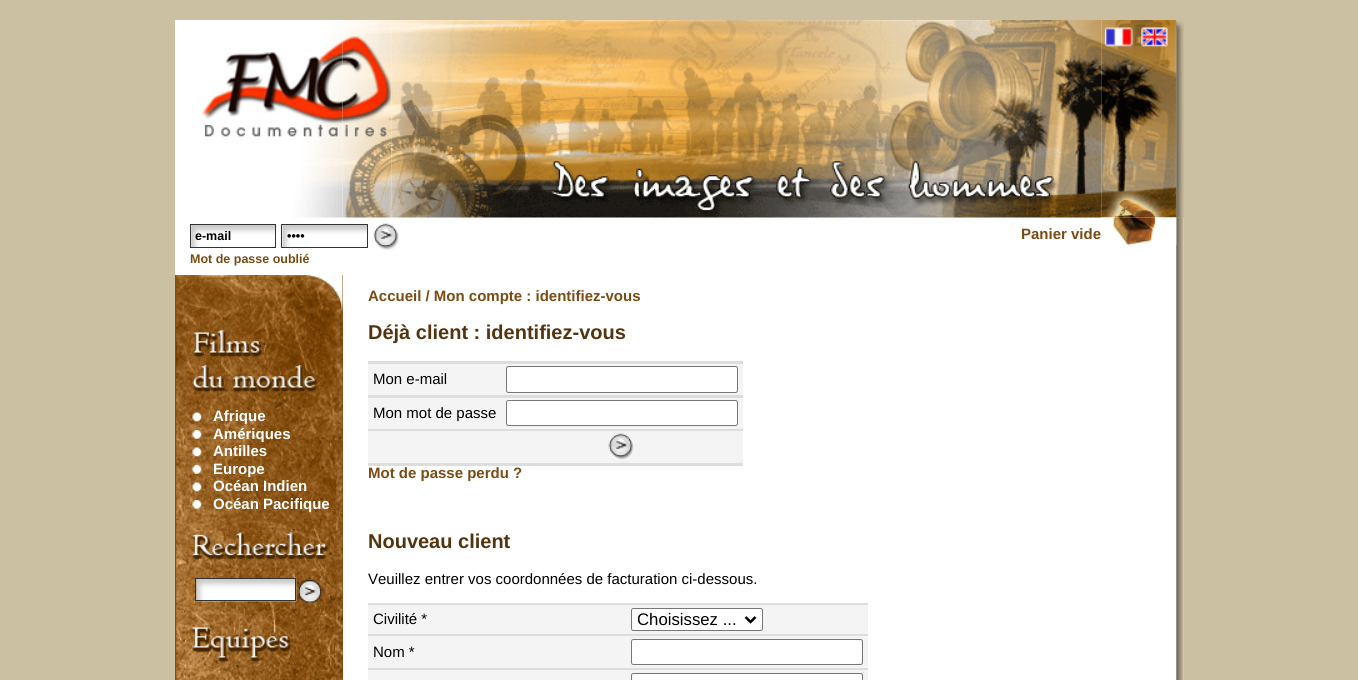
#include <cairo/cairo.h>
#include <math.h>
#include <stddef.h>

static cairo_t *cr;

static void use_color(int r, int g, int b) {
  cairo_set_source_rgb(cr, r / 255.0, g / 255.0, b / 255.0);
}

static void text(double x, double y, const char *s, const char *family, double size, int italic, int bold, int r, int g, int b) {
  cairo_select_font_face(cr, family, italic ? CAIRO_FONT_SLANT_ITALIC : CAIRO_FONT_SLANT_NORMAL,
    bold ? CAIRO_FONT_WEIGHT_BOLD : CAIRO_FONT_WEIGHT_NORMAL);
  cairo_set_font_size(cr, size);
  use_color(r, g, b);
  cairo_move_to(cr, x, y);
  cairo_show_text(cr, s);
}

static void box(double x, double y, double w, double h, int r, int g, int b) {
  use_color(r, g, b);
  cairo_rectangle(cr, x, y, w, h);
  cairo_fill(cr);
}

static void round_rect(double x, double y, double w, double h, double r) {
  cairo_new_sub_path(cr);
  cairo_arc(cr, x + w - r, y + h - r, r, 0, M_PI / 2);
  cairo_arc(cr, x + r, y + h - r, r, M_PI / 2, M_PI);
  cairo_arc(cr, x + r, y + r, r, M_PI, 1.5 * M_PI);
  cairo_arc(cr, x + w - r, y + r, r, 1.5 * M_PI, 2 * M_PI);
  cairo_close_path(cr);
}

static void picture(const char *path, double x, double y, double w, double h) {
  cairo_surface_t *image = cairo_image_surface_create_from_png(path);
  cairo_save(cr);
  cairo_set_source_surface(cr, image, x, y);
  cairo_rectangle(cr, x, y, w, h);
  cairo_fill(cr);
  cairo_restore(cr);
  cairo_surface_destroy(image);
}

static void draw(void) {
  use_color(204, 192, 163);
  cairo_paint(cr);
  box(175, 20, 1009, 660, 255, 255, 255);
  picture("img_01.png", 202, 21, 141, 197);
  picture("img_02.png", 342, 20, 50, 198);
  picture("img_03.png", 391, 20, 711, 198);
  box(1176, 20, 8, 198, 204, 192, 163);
  picture("img_05.png", 1176, 20, 8, 198);
  picture("img_11.png", 1176, 217, 8, 58);
  picture("img_04.png", 1101, 20, 76, 198);
  picture("img_06.png", 1176, 20, 8, 9);
  picture("img_07.png", 191, 225, 86, 23);
  cairo_rectangle(cr, 190.5, 224.5, 85, 23);
  use_color(51, 51, 51);
  cairo_set_line_width(cr, 1);
  cairo_stroke(cr);
  picture("img_08.png", 282, 225, 85, 22);
  cairo_rectangle(cr, 281.5, 224.5, 86, 23);
  cairo_stroke(cr);
  picture("img_09.png", 373, 223, 26, 27);
  picture("img_10.png", 1101, 217, 76, 28);
  box(175, 275, 168, 405, 131, 78, 16);
  picture("img_12.png", 176, 275, 167, 405);
  picture("img_13.png", 192, 330, 126, 63);
  picture("img_14.png", 192, 412, 10, 10);
  picture("img_15.png", 192, 430, 10, 9);
  picture("img_16.png", 192, 447, 10, 10);
  picture("img_17.png", 192, 465, 10, 9);
  picture("img_18.png", 192, 482, 10, 10);
  picture("img_19.png", 192, 500, 10, 9);
  picture("img_20.png", 192, 532, 137, 28);
  picture("img_21.png", 196, 578, 101, 24);
  cairo_rectangle(cr, 195.5, 578.5, 100, 22);
  use_color(51, 51, 51);
  cairo_stroke(cr);
  picture("img_22.png", 298, 580, 24, 23);
  picture("img_23.png", 192, 627, 99, 36);
  box(368, 361, 375, 3, 221, 221, 221);
  box(368, 364, 375, 31, 244, 244, 244);
  box(368, 395, 375, 3, 221, 221, 221);
  use_color(255, 255, 255);
  round_rect(506.5, 366.5, 231, 26, 2);
  cairo_fill_preserve(cr);
  use_color(118, 118, 118);
  cairo_stroke(cr);
  box(368, 398, 375, 31, 244, 244, 244);
  box(368, 429, 375, 2, 221, 221, 221);
  use_color(255, 255, 255);
  round_rect(506.5, 400.5, 231, 25, 2);
  cairo_fill_preserve(cr);
  use_color(118, 118, 118);
  cairo_stroke(cr);
  box(368, 431, 375, 32, 244, 244, 244);
  box(368, 463, 375, 3, 221, 221, 221);
  picture("img_24.png", 608, 433, 26, 27);
  box(368, 603, 500, 2, 221, 221, 221);
  box(368, 605, 500, 29, 244, 244, 244);
  box(368, 634, 500, 2, 221, 221, 221);
  use_color(255, 255, 255);
  round_rect(631.5, 608.5, 131, 22, 2);
  cairo_fill_preserve(cr);
  use_color(118, 118, 118);
  cairo_stroke(cr);
  cairo_new_path(cr);
  cairo_move_to(cr, 745.5, 617);
  cairo_line_to(cr, 750.5, 622);
  cairo_line_to(cr, 755.5, 617);
  use_color(0, 0, 0);
  cairo_set_line_width(cr, 2.5);
  cairo_stroke(cr);
  box(368, 636, 500, 32, 244, 244, 244);
  box(368, 668, 500, 2, 221, 221, 221);
  use_color(255, 255, 255);
  round_rect(631.5, 639.5, 231, 25, 2);
  cairo_fill_preserve(cr);
  use_color(118, 118, 118);
  cairo_set_line_width(cr, 1);
  cairo_stroke(cr);
  box(368, 670, 500, 10, 244, 244, 244);
  use_color(255, 255, 255);
  round_rect(631.5, 673.5, 231, 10, 2);
  cairo_fill_preserve(cr);
  use_color(118, 118, 118);
  cairo_stroke(cr);
  picture("img_25.png", 1176, 275, 8, 405);
  text(195, 240, "e-mail", "Liberation Sans", 12.5, 0, 1, 0, 0, 0);
  text(287, 240, "••••", "Liberation Sans", 12.5, 0, 1, 0, 0, 0);
  text(190, 263, "Mot de passe oublié", "Liberation Sans", 12.5, 0, 1, 122, 75, 19);
  text(1021, 239, "Panier vide", "Liberation Sans", 15, 0, 1, 122, 75, 19);
  text(213, 421, "Afrique", "Liberation Sans", 15, 0, 1, 255, 255, 255);
  text(213, 439, "Amériques", "Liberation Sans", 15, 0, 1, 255, 255, 255);
  text(213, 456, "Antilles", "Liberation Sans", 15, 0, 1, 255, 255, 255);
  text(213, 474, "Europe", "Liberation Sans", 15, 0, 1, 255, 255, 255);
  text(213, 491, "Océan Indien", "Liberation Sans", 15, 0, 1, 255, 255, 255);
  text(213, 509, "Océan Pacifique", "Liberation Sans", 15, 0, 1, 255, 255, 255);
  text(368, 301, "Accueil / Mon compte : identifiez-vous", "Liberation Sans", 15, 0, 1, 122, 75, 19);
  text(368, 339, "Déjà client : identifiez-vous", "Liberation Sans", 20, 0, 1, 84, 52, 14);
  text(373, 384, "Mon e-mail", "Liberation Sans", 15, 0, 0, 0, 0, 0);
  text(373, 418, "Mon mot de passe", "Liberation Sans", 15, 0, 0, 0, 0, 0);
  text(368, 478, "Mot de passe perdu ?", "Liberation Sans", 15, 0, 1, 122, 75, 19);
  text(368, 548, "Nouveau client", "Liberation Sans", 20, 0, 1, 84, 52, 14);
  text(368, 584, "Veuillez entrer vos coordonnées de facturation ci-dessous.", "Liberation Sans", 15, 0, 0, 0, 0, 0);
  text(373, 624, "Civilité *", "Liberation Sans", 15, 0, 0, 0, 0, 0);
  cairo_save(cr);
  cairo_rectangle(cr, 638, 609, 103, 21);
  cairo_clip(cr);
  text(637, 625, "Choisissez ...", "Liberation Sans", 16.75, 0, 0, 0, 0, 0);
  cairo_restore(cr);
  text(373, 657, "Nom *", "Liberation Sans", 15, 0, 0, 0, 0, 0);
}

int main(void) {
  cairo_surface_t *surface = cairo_image_surface_create(CAIRO_FORMAT_RGB24, 1358, 680);
  cr = cairo_create(surface);
  cairo_font_options_t *options = cairo_font_options_create();
  cairo_font_options_set_hint_metrics(options, CAIRO_HINT_METRICS_OFF);
  cairo_font_options_set_hint_style(options, CAIRO_HINT_STYLE_NONE);
  cairo_set_font_options(cr, options);
  cairo_set_miter_limit(cr, 4);
  draw();
  cairo_surface_write_to_png(surface, "out.png");
  cairo_font_options_destroy(options);
  cairo_destroy(cr);
  cairo_surface_destroy(surface);
  return 0;
}
